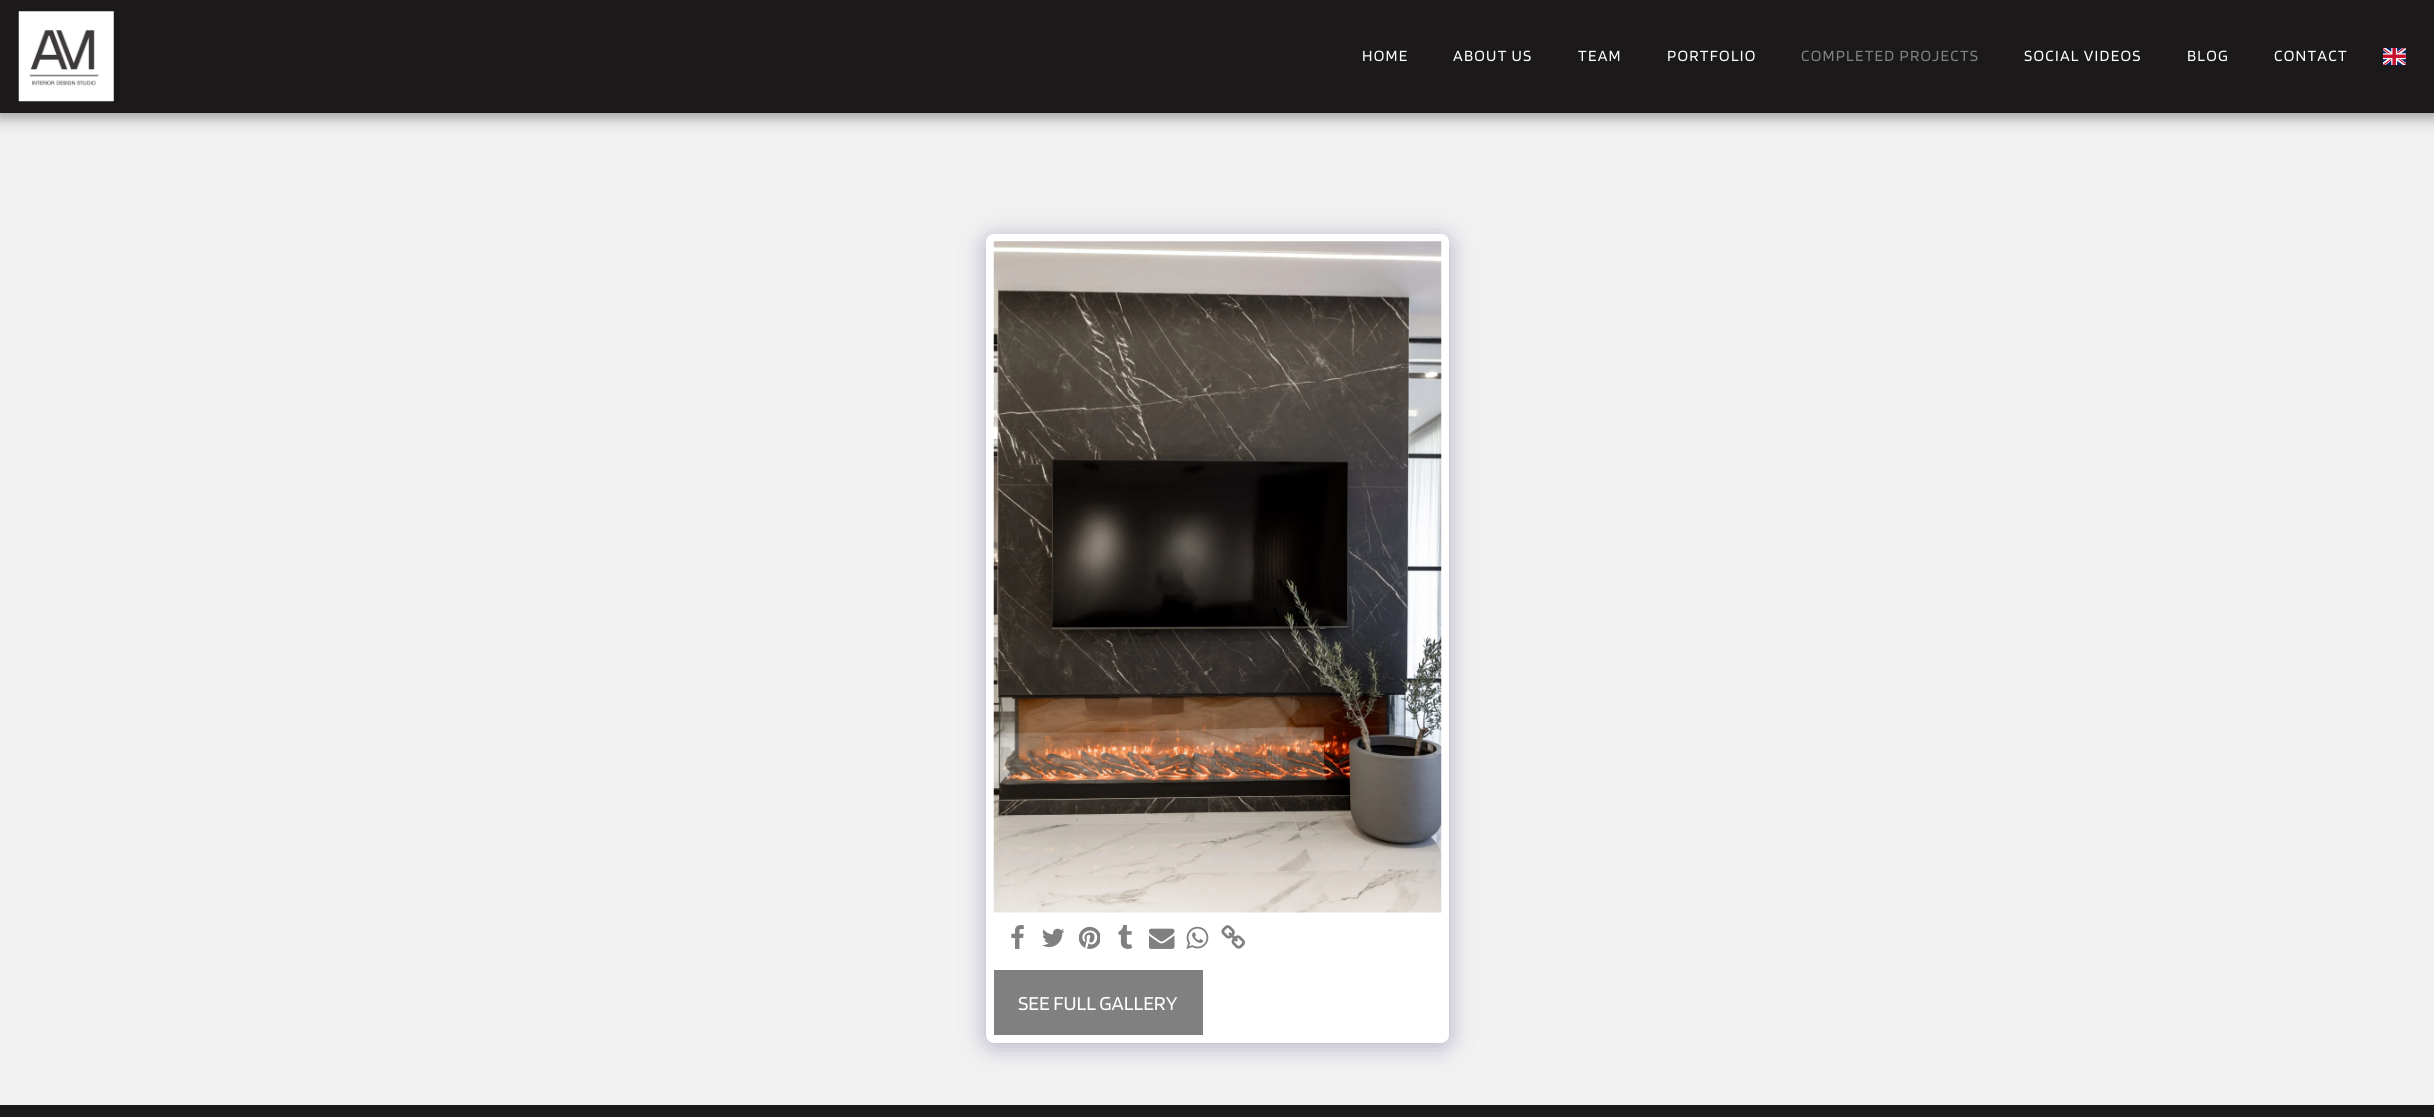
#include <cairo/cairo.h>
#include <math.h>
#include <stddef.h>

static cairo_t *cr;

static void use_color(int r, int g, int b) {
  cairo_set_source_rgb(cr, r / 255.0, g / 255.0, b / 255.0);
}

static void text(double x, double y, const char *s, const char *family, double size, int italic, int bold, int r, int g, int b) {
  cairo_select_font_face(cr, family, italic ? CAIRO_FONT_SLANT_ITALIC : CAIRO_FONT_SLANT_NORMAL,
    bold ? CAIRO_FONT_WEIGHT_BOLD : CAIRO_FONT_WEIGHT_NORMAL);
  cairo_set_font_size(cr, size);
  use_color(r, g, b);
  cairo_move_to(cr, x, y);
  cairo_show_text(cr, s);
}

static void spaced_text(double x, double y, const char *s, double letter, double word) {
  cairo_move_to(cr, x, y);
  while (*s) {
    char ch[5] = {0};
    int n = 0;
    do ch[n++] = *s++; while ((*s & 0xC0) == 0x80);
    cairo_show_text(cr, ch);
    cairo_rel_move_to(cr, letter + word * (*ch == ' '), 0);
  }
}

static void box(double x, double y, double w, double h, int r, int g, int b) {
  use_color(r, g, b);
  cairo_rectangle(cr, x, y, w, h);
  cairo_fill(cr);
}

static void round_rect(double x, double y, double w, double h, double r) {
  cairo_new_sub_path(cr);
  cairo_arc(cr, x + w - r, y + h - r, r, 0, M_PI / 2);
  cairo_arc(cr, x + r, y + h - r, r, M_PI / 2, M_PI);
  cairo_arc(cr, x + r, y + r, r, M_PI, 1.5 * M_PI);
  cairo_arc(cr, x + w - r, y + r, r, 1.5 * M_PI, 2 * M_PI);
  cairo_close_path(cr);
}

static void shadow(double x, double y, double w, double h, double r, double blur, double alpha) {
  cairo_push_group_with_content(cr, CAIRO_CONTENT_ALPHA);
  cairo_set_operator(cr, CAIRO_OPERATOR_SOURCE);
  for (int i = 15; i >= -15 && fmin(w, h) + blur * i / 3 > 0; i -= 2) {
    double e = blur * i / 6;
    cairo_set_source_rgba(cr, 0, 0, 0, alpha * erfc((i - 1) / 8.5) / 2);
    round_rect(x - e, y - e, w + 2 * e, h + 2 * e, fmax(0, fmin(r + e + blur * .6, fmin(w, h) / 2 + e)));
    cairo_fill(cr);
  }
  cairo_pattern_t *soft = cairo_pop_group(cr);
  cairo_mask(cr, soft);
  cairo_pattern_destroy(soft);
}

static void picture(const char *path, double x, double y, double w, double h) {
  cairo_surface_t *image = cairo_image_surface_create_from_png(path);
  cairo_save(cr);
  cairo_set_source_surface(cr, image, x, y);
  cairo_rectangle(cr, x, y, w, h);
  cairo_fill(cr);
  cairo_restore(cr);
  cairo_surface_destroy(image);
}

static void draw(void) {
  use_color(242, 242, 242);
  cairo_paint(cr);
  use_color(0, 0, 0);
  shadow(-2, 0, 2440, 118, 0, 7.5, 0.35);
  box(0, 0, 2434, 113, 27, 25, 25);
  picture("img_01.png", 18, 11, 96, 91);
  picture("img_02.png", 2383, 48, 23, 17);
  use_color(77, 63, 122);
  shadow(986, 238, 463, 808, 8, 12.5, 0.4);
  use_color(255, 255, 255);
  round_rect(986, 234, 463, 809, 8);
  cairo_fill(cr);
  picture("img_03.png", 993, 241, 449, 672);
  picture("img_04.png", 1011, 925, 13, 24);
  picture("img_05.png", 1042, 928, 23, 20);
  picture("img_06.png", 1079, 926, 21, 23);
  picture("img_07.png", 1118, 925, 15, 24);
  picture("img_08.png", 1149, 928, 26, 21);
  picture("img_09.png", 1186, 926, 23, 23);
  picture("img_10.png", 1221, 925, 24, 24);
  box(994, 970, 209, 65, 128, 128, 128);
  box(0, 1105, 2434, 12, 27, 25, 25);
  cairo_select_font_face(cr, "Blinker", CAIRO_FONT_SLANT_NORMAL, CAIRO_FONT_WEIGHT_NORMAL);
  cairo_set_font_size(cr, 16.25);
  use_color(255, 255, 255);
  spaced_text(1362, 61, "HOME", 1.25, 0);
  spaced_text(1453, 61, "ABOUT US", 1.25, 0);
  spaced_text(1578, 61, "TEAM", 1.25, 0);
  spaced_text(1667, 61, "PORTFOLIO", 1.25, 0);
  use_color(128, 128, 128);
  spaced_text(1801, 61, "COMPLETED PROJECTS", 1.25, 0);
  use_color(255, 255, 255);
  spaced_text(2024, 61, "SOCIAL VIDEOS", 1.25, 0);
  spaced_text(2187, 61, "BLOG", 1.25, 0);
  spaced_text(2274, 61, "CONTACT", 1.25, 0);
  text(1018, 1010, "SEE FULL GALLERY", "Blinker", 20.5, 0, 0, 255, 255, 255);
}

int main(void) {
  cairo_surface_t *surface = cairo_image_surface_create(CAIRO_FORMAT_RGB24, 2434, 1117);
  cr = cairo_create(surface);
  cairo_font_options_t *options = cairo_font_options_create();
  cairo_font_options_set_hint_metrics(options, CAIRO_HINT_METRICS_OFF);
  cairo_font_options_set_hint_style(options, CAIRO_HINT_STYLE_NONE);
  cairo_set_font_options(cr, options);
  cairo_set_miter_limit(cr, 4);
  draw();
  cairo_surface_write_to_png(surface, "out.png");
  cairo_font_options_destroy(options);
  cairo_destroy(cr);
  cairo_surface_destroy(surface);
  return 0;
}
